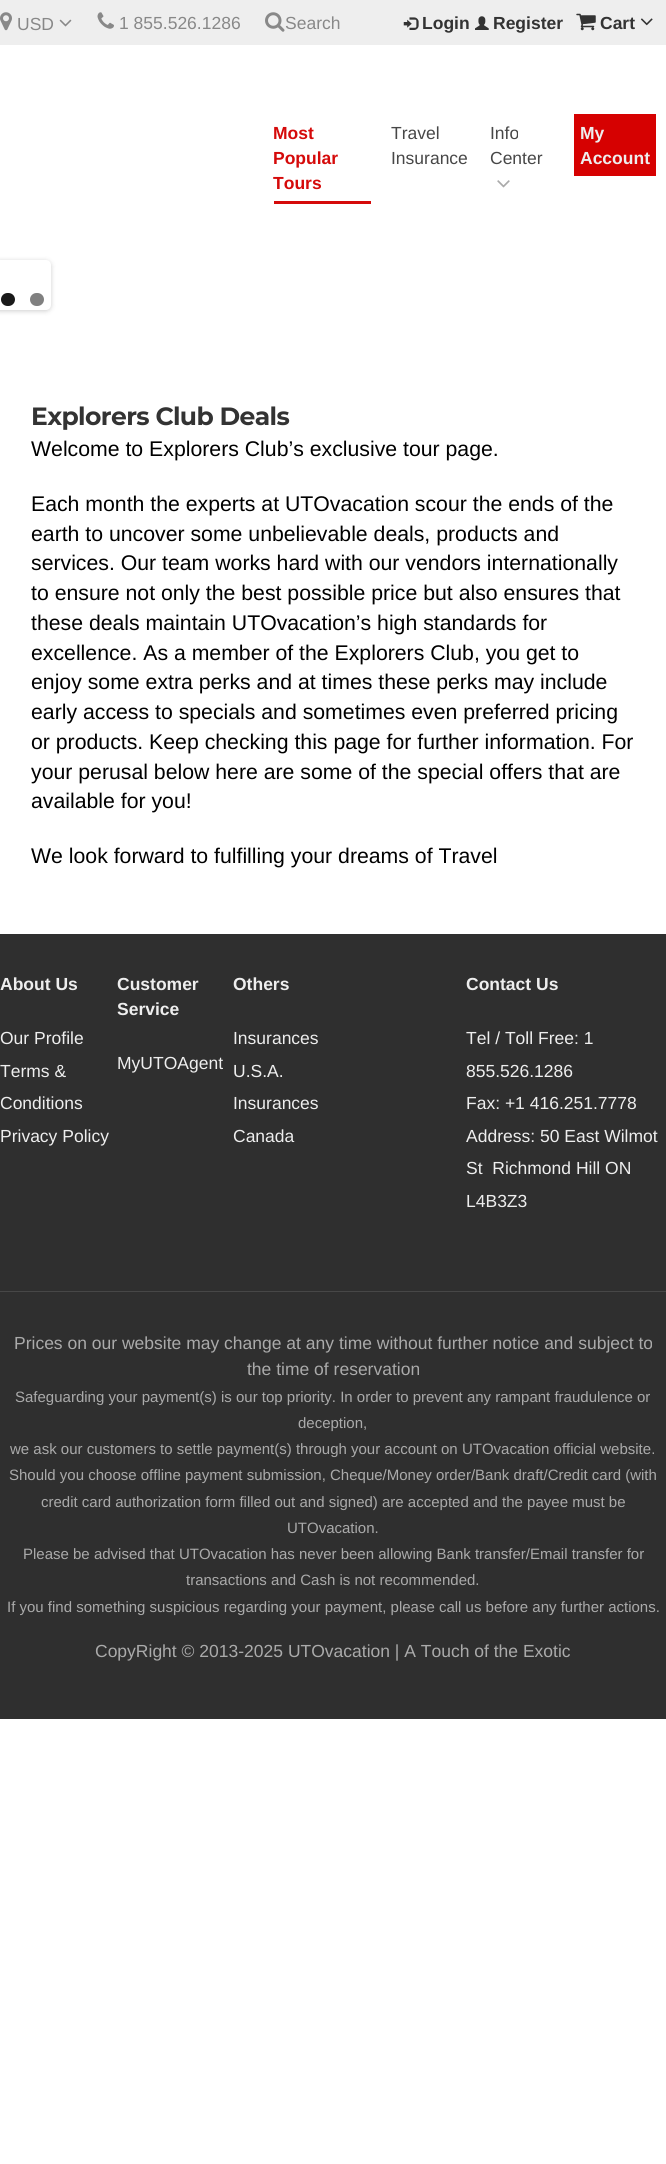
#include <cairo/cairo.h>
#include <math.h>
#include <stddef.h>

static cairo_t *cr;

static void use_color(int r, int g, int b) {
  cairo_set_source_rgb(cr, r / 255.0, g / 255.0, b / 255.0);
}

static void text(double x, double y, const char *s, const char *family, double size, int italic, int bold, int r, int g, int b) {
  cairo_select_font_face(cr, family, italic ? CAIRO_FONT_SLANT_ITALIC : CAIRO_FONT_SLANT_NORMAL,
    bold ? CAIRO_FONT_WEIGHT_BOLD : CAIRO_FONT_WEIGHT_NORMAL);
  cairo_set_font_size(cr, size);
  use_color(r, g, b);
  cairo_move_to(cr, x, y);
  cairo_show_text(cr, s);
}

static void spaced_text(double x, double y, const char *s, double letter, double word) {
  cairo_move_to(cr, x, y);
  while (*s) {
    char ch[5] = {0};
    int n = 0;
    do ch[n++] = *s++; while ((*s & 0xC0) == 0x80);
    cairo_show_text(cr, ch);
    cairo_rel_move_to(cr, letter + word * (*ch == ' '), 0);
  }
}

static void box(double x, double y, double w, double h, int r, int g, int b) {
  use_color(r, g, b);
  cairo_rectangle(cr, x, y, w, h);
  cairo_fill(cr);
}

static void round_rect(double x, double y, double w, double h, double r) {
  cairo_new_sub_path(cr);
  cairo_arc(cr, x + w - r, y + h - r, r, 0, M_PI / 2);
  cairo_arc(cr, x + r, y + h - r, r, M_PI / 2, M_PI);
  cairo_arc(cr, x + r, y + r, r, M_PI, 1.5 * M_PI);
  cairo_arc(cr, x + w - r, y + r, r, 1.5 * M_PI, 2 * M_PI);
  cairo_close_path(cr);
}

static void shadow(double x, double y, double w, double h, double r, double blur, double alpha) {
  cairo_push_group_with_content(cr, CAIRO_CONTENT_ALPHA);
  cairo_set_operator(cr, CAIRO_OPERATOR_SOURCE);
  for (int i = 15; i >= -15 && fmin(w, h) + blur * i / 3 > 0; i -= 2) {
    double e = blur * i / 6;
    cairo_set_source_rgba(cr, 0, 0, 0, alpha * erfc((i - 1) / 8.5) / 2);
    round_rect(x - e, y - e, w + 2 * e, h + 2 * e, fmax(0, fmin(r + e + blur * .6, fmin(w, h) / 2 + e)));
    cairo_fill(cr);
  }
  cairo_pattern_t *soft = cairo_pop_group(cr);
  cairo_mask(cr, soft);
  cairo_pattern_destroy(soft);
}

static void picture(const char *path, double x, double y, double w, double h) {
  cairo_surface_t *image = cairo_image_surface_create_from_png(path);
  cairo_save(cr);
  cairo_set_source_surface(cr, image, x, y);
  cairo_rectangle(cr, x, y, w, h);
  cairo_fill(cr);
  cairo_restore(cr);
  cairo_surface_destroy(image);
}

static void draw(void) {
  use_color(255, 255, 255);
  cairo_paint(cr);
  box(0, 0, 666, 45, 238, 238, 238);
  picture("img_01.png", 0, 12, 12, 19);
  picture("img_02.png", 59, 19, 13, 8);
  picture("img_03.png", 97, 12, 17, 17);
  picture("img_04.png", 265, 12, 20, 20);
  picture("img_05.png", 403, 17, 16, 13);
  picture("img_06.png", 475, 16, 14, 14);
  picture("img_07.png", 576, 13, 20, 18);
  picture("img_08.png", 640, 18, 13, 8);
  box(274, 201, 97, 3, 213, 10, 10);
  picture("img_09.png", 497, 180, 13, 8);
  box(574, 114, 82, 62, 214, 1, 1);
  use_color(0, 0, 0);
  shadow(-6, 261, 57, 50, 5, 2.5, 0.2);
  use_color(255, 255, 255);
  round_rect(-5, 260, 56, 50, 5);
  cairo_fill(cr);
  use_color(26, 26, 26);
  round_rect(1, 293, 14, 13, 6.5);
  cairo_fill(cr);
  use_color(128, 128, 128);
  round_rect(30, 293, 14, 13, 6.5);
  cairo_fill(cr);
  box(0, 934, 666, 785, 47, 47, 47);
  box(0, 1291, 666, 1, 71, 71, 71);
  text(17, 30, "USD", "Liberation Sans", 17.5, 0, 0, 136, 136, 136);
  text(119, 29, "1 855.526.1286", "Liberation Sans", 17.5, 0, 0, 136, 136, 136);
  text(285, 29, "Search", "Liberation Sans", 17.5, 0, 0, 136, 136, 136);
  text(422, 29, "Login", "Liberation Sans", 17.5, 0, 1, 51, 51, 51);
  text(493, 29, "Register", "Liberation Sans", 17.5, 0, 1, 51, 51, 51);
  text(600, 29, "Cart", "Liberation Sans", 17.5, 0, 1, 51, 51, 51);
  text(273, 139, "Most", "Liberation Sans", 17.5, 0, 1, 213, 10, 10);
  text(273, 164, "Popular", "Liberation Sans", 17.5, 0, 1, 213, 10, 10);
  text(273, 189, "Tours", "Liberation Sans", 17.5, 0, 1, 213, 10, 10);
  text(391, 139, "Travel", "Liberation Sans", 17.5, 0, 0, 71, 71, 71);
  text(391, 164, "Insurance", "Liberation Sans", 17.5, 0, 0, 71, 71, 71);
  text(490, 139, "Info", "Liberation Sans", 17.5, 0, 0, 71, 71, 71);
  text(490, 164, "Center", "Liberation Sans", 17.5, 0, 0, 71, 71, 71);
  text(580, 139, "My", "Liberation Sans", 17.5, 0, 1, 238, 238, 238);
  text(580, 164, "Account", "Liberation Sans", 17.5, 0, 1, 238, 238, 238);
  cairo_select_font_face(cr, "Montserrat", CAIRO_FONT_SLANT_NORMAL, CAIRO_FONT_WEIGHT_BOLD);
  cairo_set_font_size(cr, 25);
  use_color(51, 51, 51);
  spaced_text(31, 425, "Explorers Club Deals", -0.6, 0);
  text(31, 456, "Welcome to Explorers Club’s exclusive tour page.", "Liberation Sans", 21.25, 0, 0, 0, 0, 0);
  text(31, 511, "Each month the experts at UTOvacation scour the ends of the", "Liberation Sans", 21.25, 0, 0, 0, 0, 0);
  text(31, 541, "earth to uncover some unbelievable deals, products and", "Liberation Sans", 21.25, 0, 0, 0, 0, 0);
  text(31, 570, "services. Our team works hard with our vendors internationally", "Liberation Sans", 21.25, 0, 0, 0, 0, 0);
  text(31, 600, "to ensure not only the best possible price but also ensures that", "Liberation Sans", 21.25, 0, 0, 0, 0, 0);
  text(31, 630, "these deals maintain UTOvacation’s high standards for", "Liberation Sans", 21.25, 0, 0, 0, 0, 0);
  text(31, 660, "excellence. As a member of the Explorers Club, you get to", "Liberation Sans", 21.25, 0, 0, 0, 0, 0);
  text(31, 689, "enjoy some extra perks and at times these perks may include", "Liberation Sans", 21.25, 0, 0, 0, 0, 0);
  text(31, 719, "early access to specials and sometimes even preferred pricing", "Liberation Sans", 21.25, 0, 0, 0, 0, 0);
  text(31, 749, "or products. Keep checking this page for further information. For", "Liberation Sans", 21.25, 0, 0, 0, 0, 0);
  text(31, 779, "your perusal below here are some of the special offers that are", "Liberation Sans", 21.25, 0, 0, 0, 0, 0);
  text(31, 808, "available for you!", "Liberation Sans", 21.25, 0, 0, 0, 0, 0);
  text(31, 863, "We look forward to fulfilling your dreams of Travel", "Liberation Sans", 21.25, 0, 0, 0, 0, 0);
  text(0, 990, "About Us", "Liberation Sans", 17.5, 0, 1, 238, 238, 238);
  text(0, 1044, "Our Profile", "Liberation Sans", 17.5, 0, 0, 238, 238, 238);
  text(0, 1077, "Terms &", "Liberation Sans", 17.5, 0, 0, 238, 238, 238);
  text(0, 1109, "Conditions", "Liberation Sans", 17.5, 0, 0, 238, 238, 238);
  text(0, 1142, "Privacy Policy", "Liberation Sans", 17.5, 0, 0, 238, 238, 238);
  text(117, 990, "Customer", "Liberation Sans", 17.5, 0, 1, 238, 238, 238);
  text(117, 1015, "Service", "Liberation Sans", 17.5, 0, 1, 238, 238, 238);
  text(117, 1069, "MyUTOAgent", "Liberation Sans", 17.5, 0, 0, 238, 238, 238);
  text(233, 990, "Others", "Liberation Sans", 17.5, 0, 1, 238, 238, 238);
  text(233, 1044, "Insurances", "Liberation Sans", 17.5, 0, 0, 238, 238, 238);
  text(233, 1077, "U.S.A.", "Liberation Sans", 17.5, 0, 0, 238, 238, 238);
  text(233, 1109, "Insurances", "Liberation Sans", 17.5, 0, 0, 238, 238, 238);
  text(233, 1142, "Canada", "Liberation Sans", 17.5, 0, 0, 238, 238, 238);
  text(466, 990, "Contact Us", "Liberation Sans", 17.5, 0, 1, 238, 238, 238);
  text(466, 1044, "Tel / Toll Free: 1", "Liberation Sans", 17.5, 0, 0, 238, 238, 238);
  text(466, 1077, "855.526.1286", "Liberation Sans", 17.5, 0, 0, 238, 238, 238);
  text(466, 1109, "Fax: +1 416.251.7778", "Liberation Sans", 17.5, 0, 0, 238, 238, 238);
  text(466, 1142, "Address: 50 East Wilmot", "Liberation Sans", 17.5, 0, 0, 238, 238, 238);
  text(466, 1174, "St  Richmond Hill ON", "Liberation Sans", 17.5, 0, 0, 238, 238, 238);
  text(466, 1207, "L4B3Z3", "Liberation Sans", 17.5, 0, 0, 238, 238, 238);
  text(14, 1349, "Prices on our website may change at any time without further notice and subject to", "Liberation Sans", 17.5, 0, 0, 170, 170, 170);
  text(247, 1375, "the time of reservation", "Liberation Sans", 17.5, 0, 0, 170, 170, 170);
  text(15, 1402, "Safeguarding your payment(s) is our top priority. In order to prevent any rampant fraudulence or", "Liberation Sans", 15, 0, 0, 170, 170, 170);
  text(298, 1428, "deception,", "Liberation Sans", 15, 0, 0, 170, 170, 170);
  text(10, 1454, "we ask our customers to settle payment(s) through your account on UTOvacation official website.", "Liberation Sans", 15, 0, 0, 170, 170, 170);
  text(9, 1480, "Should you choose offline payment submission, Cheque/Money order/Bank draft/Credit card (with", "Liberation Sans", 15, 0, 0, 170, 170, 170);
  text(41, 1507, "credit card authorization form filled out and signed) are accepted and the payee must be", "Liberation Sans", 15, 0, 0, 170, 170, 170);
  text(287, 1533, "UTOvacation.", "Liberation Sans", 15, 0, 0, 170, 170, 170);
  text(23, 1559, "Please be advised that UTOvacation has never been allowing Bank transfer/Email transfer for", "Liberation Sans", 15, 0, 0, 170, 170, 170);
  text(186, 1585, "transactions and Cash is not recommended.", "Liberation Sans", 15, 0, 0, 170, 170, 170);
  text(7, 1612, "If you find something suspicious regarding your payment, please call us before any further actions.", "Liberation Sans", 15, 0, 0, 170, 170, 170);
  text(95, 1657, "CopyRight © 2013-2025 UTOvacation | A Touch of the Exotic", "Liberation Sans", 17.5, 0, 0, 170, 170, 170);
}

int main(void) {
  cairo_surface_t *surface = cairo_image_surface_create(CAIRO_FORMAT_RGB24, 666, 2164);
  cr = cairo_create(surface);
  cairo_font_options_t *options = cairo_font_options_create();
  cairo_font_options_set_hint_metrics(options, CAIRO_HINT_METRICS_OFF);
  cairo_font_options_set_hint_style(options, CAIRO_HINT_STYLE_NONE);
  cairo_set_font_options(cr, options);
  cairo_set_miter_limit(cr, 4);
  draw();
  cairo_surface_write_to_png(surface, "out.png");
  cairo_font_options_destroy(options);
  cairo_destroy(cr);
  cairo_surface_destroy(surface);
  return 0;
}
